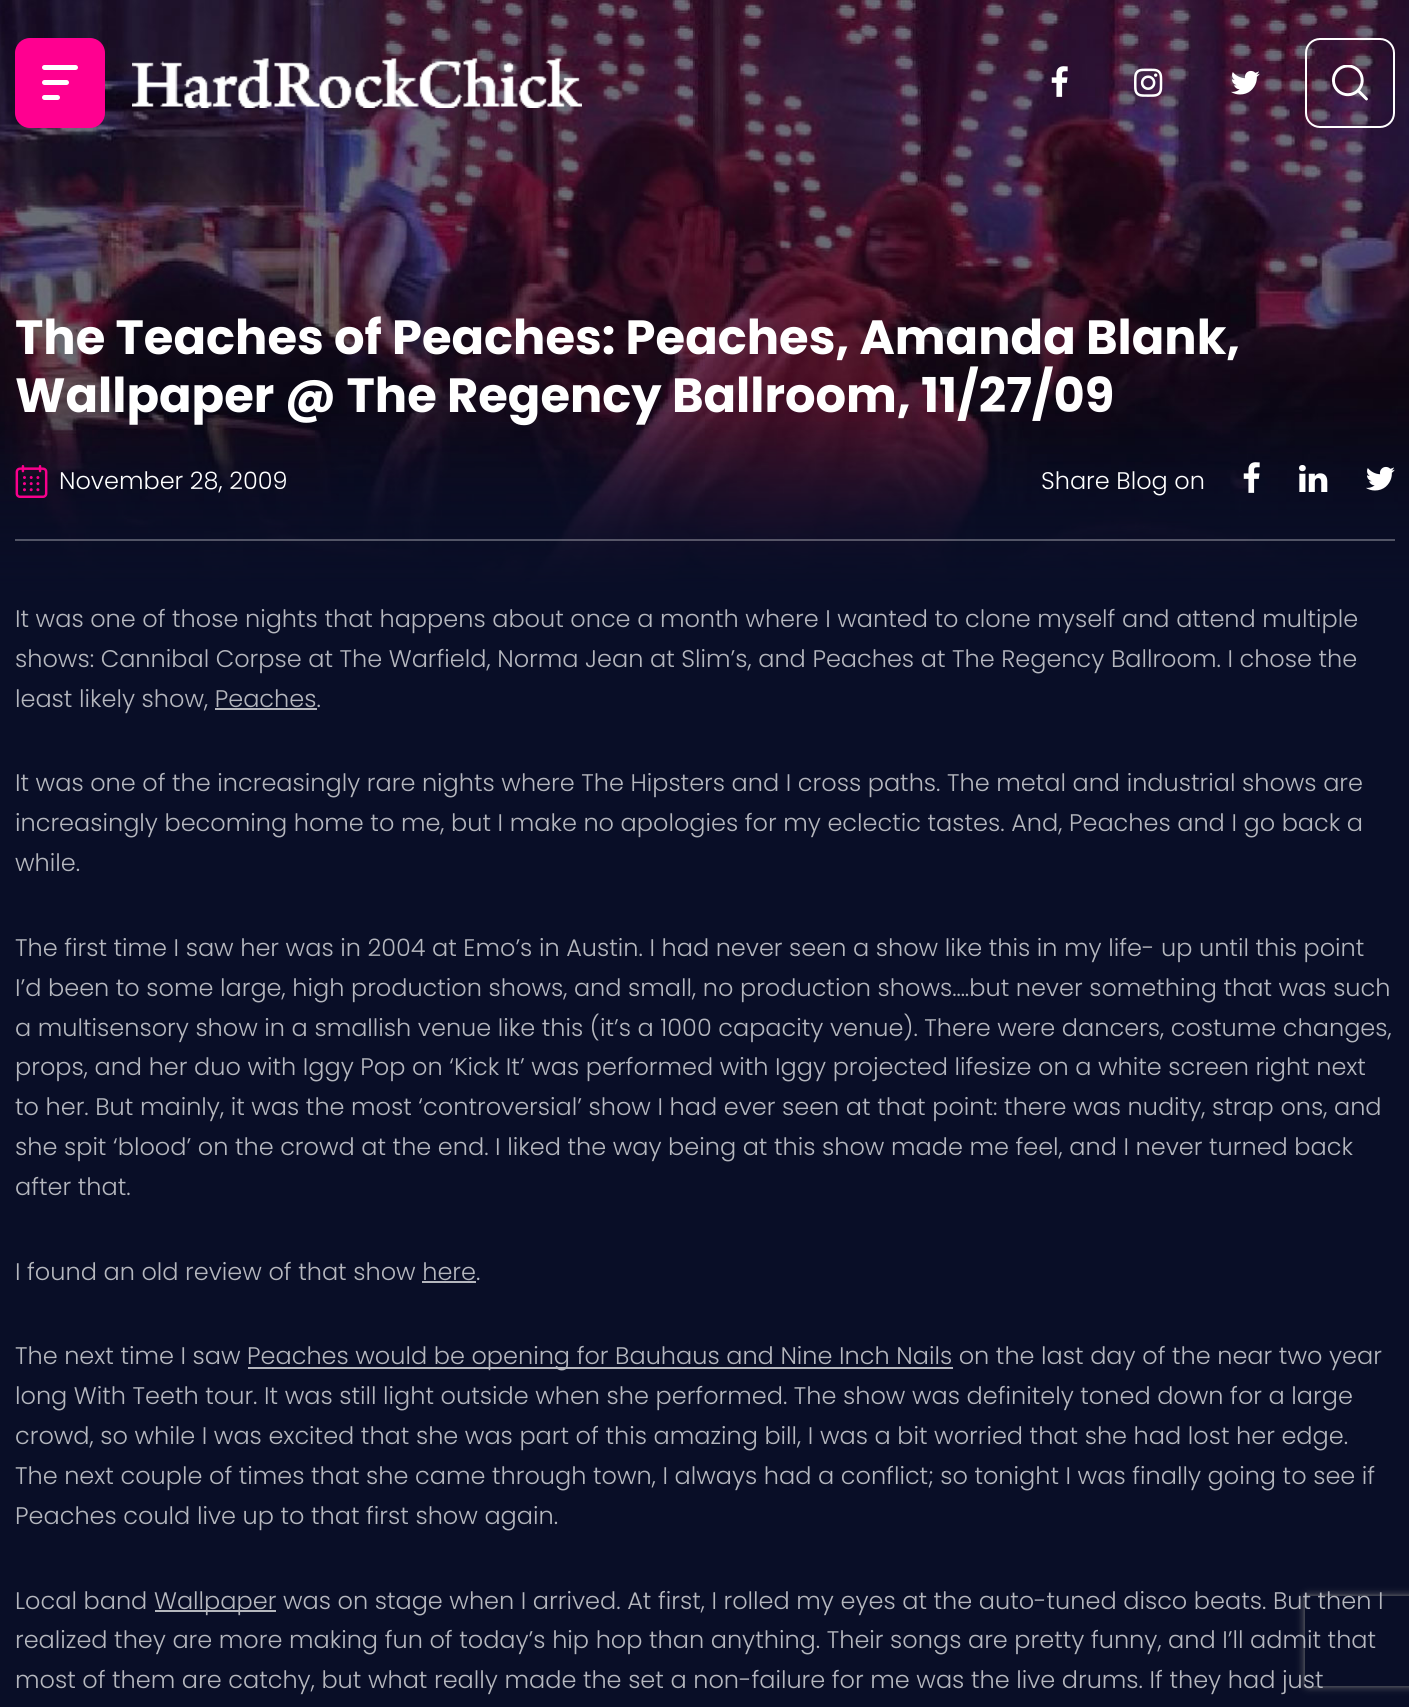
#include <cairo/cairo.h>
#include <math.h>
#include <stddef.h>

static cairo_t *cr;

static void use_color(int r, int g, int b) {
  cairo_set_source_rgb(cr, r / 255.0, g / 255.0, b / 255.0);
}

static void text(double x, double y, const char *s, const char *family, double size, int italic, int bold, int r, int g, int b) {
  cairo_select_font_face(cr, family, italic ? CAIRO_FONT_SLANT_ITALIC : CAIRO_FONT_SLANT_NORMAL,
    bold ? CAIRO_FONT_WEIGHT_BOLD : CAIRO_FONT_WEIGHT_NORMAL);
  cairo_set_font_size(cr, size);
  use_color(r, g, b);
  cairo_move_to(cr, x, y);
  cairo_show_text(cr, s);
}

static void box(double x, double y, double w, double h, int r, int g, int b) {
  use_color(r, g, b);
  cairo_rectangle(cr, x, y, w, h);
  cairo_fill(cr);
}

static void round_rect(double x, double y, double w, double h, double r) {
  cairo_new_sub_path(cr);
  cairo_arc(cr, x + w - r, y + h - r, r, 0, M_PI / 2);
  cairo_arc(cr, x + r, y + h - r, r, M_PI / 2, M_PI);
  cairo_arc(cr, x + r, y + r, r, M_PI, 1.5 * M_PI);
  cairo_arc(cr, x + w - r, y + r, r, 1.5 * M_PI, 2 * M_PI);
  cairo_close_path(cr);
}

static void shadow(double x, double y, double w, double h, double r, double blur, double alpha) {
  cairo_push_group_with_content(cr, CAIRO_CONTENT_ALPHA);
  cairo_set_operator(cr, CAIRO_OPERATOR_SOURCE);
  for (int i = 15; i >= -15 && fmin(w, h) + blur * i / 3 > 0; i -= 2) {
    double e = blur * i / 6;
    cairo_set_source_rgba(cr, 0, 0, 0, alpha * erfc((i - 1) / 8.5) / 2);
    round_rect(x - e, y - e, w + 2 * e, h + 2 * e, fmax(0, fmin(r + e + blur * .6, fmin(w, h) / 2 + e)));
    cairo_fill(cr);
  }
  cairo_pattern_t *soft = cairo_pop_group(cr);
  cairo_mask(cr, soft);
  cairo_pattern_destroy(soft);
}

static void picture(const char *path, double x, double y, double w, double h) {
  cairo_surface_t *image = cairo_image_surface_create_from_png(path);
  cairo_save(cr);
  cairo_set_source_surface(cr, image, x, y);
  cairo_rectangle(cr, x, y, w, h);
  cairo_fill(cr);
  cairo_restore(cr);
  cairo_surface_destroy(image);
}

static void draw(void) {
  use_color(9, 14, 39);
  cairo_paint(cr);
  picture("img_06.png", 0, 0, 1409, 591);
  use_color(255, 0, 144);
  round_rect(15, 38, 90, 90, 15);
  cairo_fill(cr);
  use_color(255, 255, 255);
  round_rect(42, 65, 36, 5, 2.5);
  cairo_fill(cr);
  round_rect(42, 80, 27, 5, 2.5);
  cairo_fill(cr);
  round_rect(42, 95, 18, 5, 2.5);
  cairo_fill(cr);
  picture("img_01.png", 132, 58, 450, 50);
  picture("img_02.png", 1051, 66, 17, 31);
  picture("img_03.png", 1134, 68, 29, 29);
  picture("img_04.png", 1231, 70, 29, 25);
  round_rect(1306, 39, 88, 88, 14);
  cairo_stroke(cr);
  picture("img_05.png", 1332, 65, 36, 36);
  cairo_set_source_rgba(cr, 1, 1, 1, 0.3);
  cairo_rectangle(cr, 15, 539, 1380, 2);
  cairo_fill(cr);
  picture("img_07.png", 15, 465, 33, 33);
  picture("img_08.png", 1243, 462, 17, 31);
  picture("img_09.png", 1299, 465, 29, 27);
  picture("img_10.png", 1366, 466, 29, 25);
  box(215, 708, 102, 2, 181, 183, 190);
  box(422, 1281, 54, 2, 181, 183, 190);
  box(248, 1367, 705, 2, 181, 183, 190);
  box(155, 1610, 121, 2, 181, 183, 190);
  cairo_save(cr);
  cairo_set_fill_rule(cr, CAIRO_FILL_RULE_EVEN_ODD);
  cairo_new_path(cr);
  cairo_move_to(cr, 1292, 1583);
  cairo_line_to(cr, 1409, 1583);
  cairo_line_to(cr, 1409, 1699);
  cairo_line_to(cr, 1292, 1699);
  cairo_close_path(cr);
  cairo_move_to(cr, 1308, 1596);
  cairo_line_to(cr, 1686, 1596);
  cairo_curve_to(cr, 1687.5, 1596, 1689, 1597.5, 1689, 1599);
  cairo_line_to(cr, 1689, 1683);
  cairo_curve_to(cr, 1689, 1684.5, 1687.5, 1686, 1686, 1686);
  cairo_line_to(cr, 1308, 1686);
  cairo_curve_to(cr, 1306.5, 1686, 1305, 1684.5, 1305, 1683);
  cairo_line_to(cr, 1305, 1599);
  cairo_curve_to(cr, 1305, 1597.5, 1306.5, 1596, 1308, 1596);
  cairo_close_path(cr);
  cairo_clip(cr);
  use_color(128, 128, 128);
  shadow(1305, 1596, 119, 90, 3, 4, 1);
  cairo_restore(cr);
  text(15, 354, "The Teaches of Peaches: Peaches, Amanda Blank,", "Poppins", 48, 0, 1, 255, 255, 255);
  text(15, 412, "Wallpaper @ The Regency Ballroom, 11/27/09", "Poppins", 48, 0, 1, 255, 255, 255);
  text(59, 489, "November 28, 2009", "Poppins Light", 24, 0, 0, 255, 255, 255);
  text(1041, 489, "Share Blog on", "Poppins Light", 24, 0, 0, 255, 255, 255);
  text(15, 627, "It was one of those nights that happens about once a month where I wanted to clone myself and attend multiple", "Poppins Light", 24, 0, 0, 181, 183, 190);
  text(15, 667, "shows: Cannibal Corpse at The Warfield, Norma Jean at Slim’s, and Peaches at The Regency Ballroom. I chose the", "Poppins Light", 24, 0, 0, 181, 183, 190);
  text(15, 707, "least likely show, Peaches.", "Poppins Light", 24, 0, 0, 181, 183, 190);
  text(15, 791, "It was one of the increasingly rare nights where The Hipsters and I cross paths. The metal and industrial shows are", "Poppins Light", 24, 0, 0, 181, 183, 190);
  text(15, 831, "increasingly becoming home to me, but I make no apologies for my eclectic tastes. And, Peaches and I go back a", "Poppins Light", 24, 0, 0, 181, 183, 190);
  text(15, 871, "while.", "Poppins Light", 24, 0, 0, 181, 183, 190);
  text(15, 956, "The first time I saw her was in 2004 at Emo’s in Austin. I had never seen a show like this in my life- up until this point", "Poppins Light", 24, 0, 0, 181, 183, 190);
  text(15, 996, "I’d been to some large, high production shows, and small, no production shows….but never something that was such", "Poppins Light", 24, 0, 0, 181, 183, 190);
  text(15, 1036, "a multisensory show in a smallish venue like this (it’s a 1000 capacity venue). There were dancers, costume changes,", "Poppins Light", 24, 0, 0, 181, 183, 190);
  text(15, 1075, "props, and her duo with Iggy Pop on ‘Kick It’ was performed with Iggy projected lifesize on a white screen right next", "Poppins Light", 24, 0, 0, 181, 183, 190);
  text(15, 1115, "to her. But mainly, it was the most ‘controversial’ show I had ever seen at that point: there was nudity, strap ons, and", "Poppins Light", 24, 0, 0, 181, 183, 190);
  text(15, 1155, "she spit ‘blood’ on the crowd at the end. I liked the way being at this show made me feel, and I never turned back", "Poppins Light", 24, 0, 0, 181, 183, 190);
  text(15, 1195, "after that.", "Poppins Light", 24, 0, 0, 181, 183, 190);
  text(15, 1280, "I found an old review of that show here.", "Poppins Light", 24, 0, 0, 181, 183, 190);
  text(15, 1364, "The next time I saw", "Poppins Light", 24, 0, 0, 181, 183, 190);
  text(247, 1364, "Peaches would be opening for Bauhaus and Nine Inch Nails on the last day of the near two year", "Poppins Light", 24, 0, 0, 181, 183, 190);
  text(15, 1404, "long With Teeth tour. It was still light outside when she performed. The show was definitely toned down for a large", "Poppins Light", 24, 0, 0, 181, 183, 190);
  text(15, 1444, "crowd, so while I was excited that she was part of this amazing bill, I was a bit worried that she had lost her edge.", "Poppins Light", 24, 0, 0, 181, 183, 190);
  text(15, 1484, "The next couple of times that she came through town, I always had a conflict; so tonight I was finally going to see if", "Poppins Light", 24, 0, 0, 181, 183, 190);
  text(15, 1524, "Peaches could live up to that first show again.", "Poppins Light", 24, 0, 0, 181, 183, 190);
  text(15, 1609, "Local band", "Poppins Light", 24, 0, 0, 181, 183, 190);
  text(154, 1609, "Wallpaper was on stage when I arrived. At first, I rolled my eyes at the auto-tuned disco beats. But then I", "Poppins Light", 24, 0, 0, 181, 183, 190);
  text(15, 1648, "realized they are more making fun of today’s hip hop than anything. Their songs are pretty funny, and I’ll admit that", "Poppins Light", 24, 0, 0, 181, 183, 190);
  text(15, 1688, "most of them are catchy, but what really made the set a non-failure for me was the live drums. If they had just", "Poppins Light", 24, 0, 0, 181, 183, 190);
}

int main(void) {
  cairo_surface_t *surface = cairo_image_surface_create(CAIRO_FORMAT_RGB24, 1409, 1707);
  cr = cairo_create(surface);
  cairo_font_options_t *options = cairo_font_options_create();
  cairo_font_options_set_hint_metrics(options, CAIRO_HINT_METRICS_OFF);
  cairo_font_options_set_hint_style(options, CAIRO_HINT_STYLE_NONE);
  cairo_set_font_options(cr, options);
  cairo_set_miter_limit(cr, 4);
  draw();
  cairo_surface_write_to_png(surface, "out.png");
  cairo_font_options_destroy(options);
  cairo_destroy(cr);
  cairo_surface_destroy(surface);
  return 0;
}
